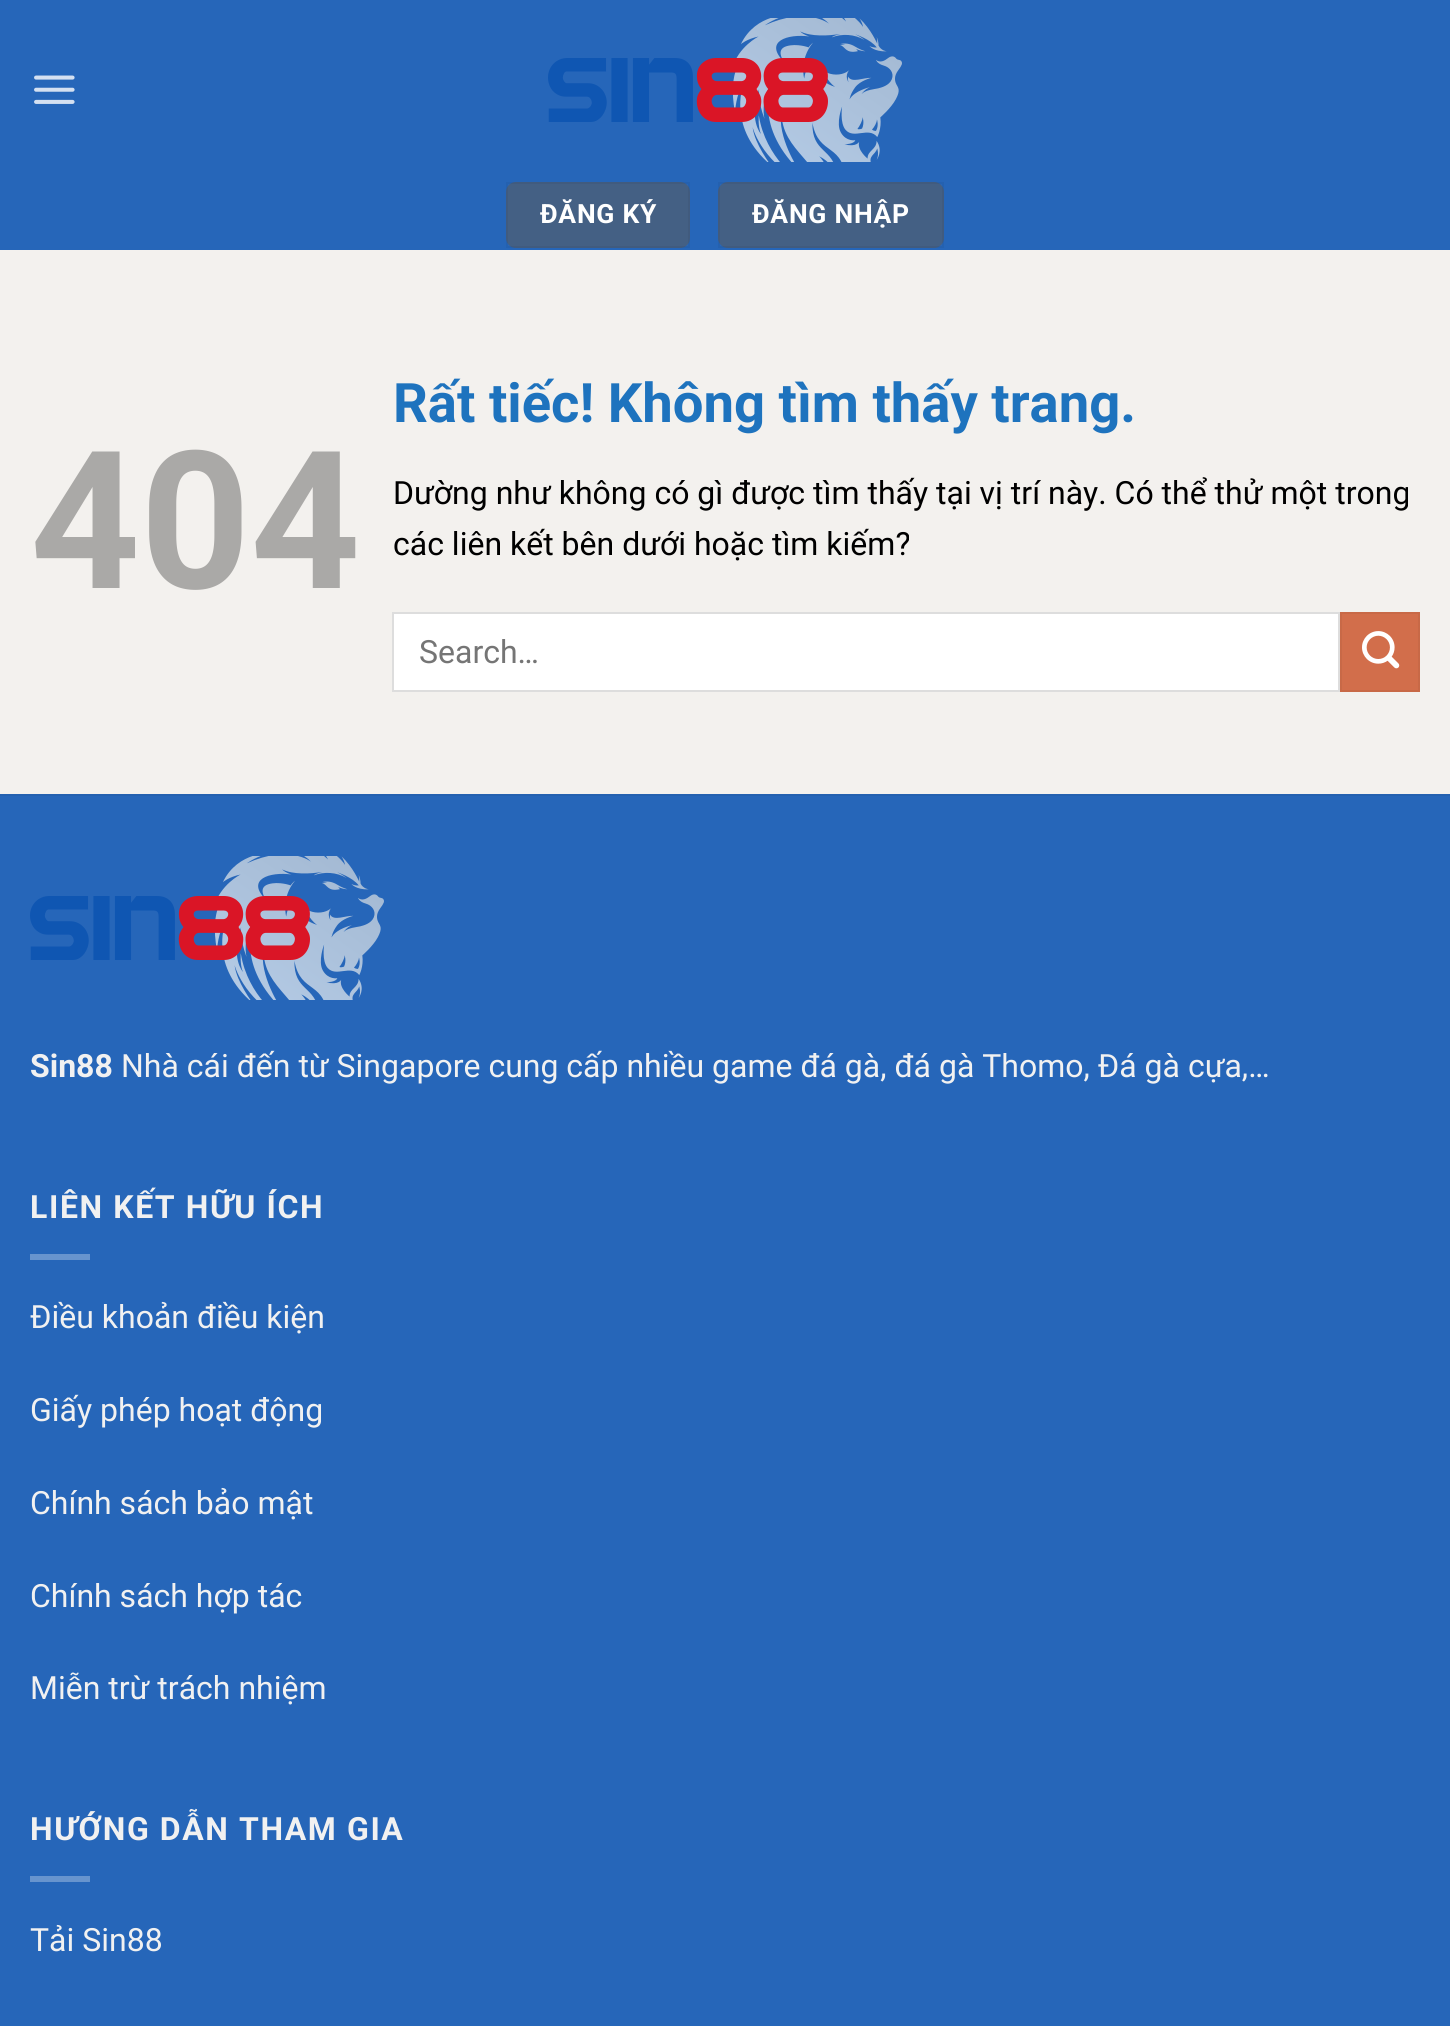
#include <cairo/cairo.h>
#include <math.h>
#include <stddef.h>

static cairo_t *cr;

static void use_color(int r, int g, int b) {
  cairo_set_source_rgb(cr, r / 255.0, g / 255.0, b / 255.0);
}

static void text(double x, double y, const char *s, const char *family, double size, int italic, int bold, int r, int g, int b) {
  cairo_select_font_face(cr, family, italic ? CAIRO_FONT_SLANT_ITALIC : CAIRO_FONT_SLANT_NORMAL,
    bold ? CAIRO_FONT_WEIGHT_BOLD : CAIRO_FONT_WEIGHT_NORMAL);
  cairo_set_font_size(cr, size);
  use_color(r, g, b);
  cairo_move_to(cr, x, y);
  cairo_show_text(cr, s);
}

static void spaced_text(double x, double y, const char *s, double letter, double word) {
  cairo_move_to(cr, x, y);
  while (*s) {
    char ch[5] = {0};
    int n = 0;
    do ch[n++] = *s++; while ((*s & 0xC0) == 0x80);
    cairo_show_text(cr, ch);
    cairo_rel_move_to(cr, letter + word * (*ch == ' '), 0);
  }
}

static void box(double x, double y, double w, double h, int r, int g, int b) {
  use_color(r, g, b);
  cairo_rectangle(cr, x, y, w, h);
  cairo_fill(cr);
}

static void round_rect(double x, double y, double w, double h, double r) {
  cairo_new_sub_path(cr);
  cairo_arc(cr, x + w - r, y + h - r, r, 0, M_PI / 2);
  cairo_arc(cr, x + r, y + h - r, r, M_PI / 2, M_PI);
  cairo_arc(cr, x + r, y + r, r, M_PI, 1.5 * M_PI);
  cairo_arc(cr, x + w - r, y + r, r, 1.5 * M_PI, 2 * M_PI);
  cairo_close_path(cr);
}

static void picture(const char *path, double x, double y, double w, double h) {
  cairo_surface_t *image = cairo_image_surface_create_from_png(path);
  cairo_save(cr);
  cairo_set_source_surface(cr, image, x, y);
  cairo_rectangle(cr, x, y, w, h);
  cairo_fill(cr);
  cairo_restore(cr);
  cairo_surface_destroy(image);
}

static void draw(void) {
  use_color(243, 241, 238);
  cairo_paint(cr);
  box(0, 0, 1450, 250, 38, 102, 185);
  picture("img_01.png", 34, 75, 41, 29);
  picture("img_02.png", 548, 18, 354, 144);
  use_color(68, 96, 132);
  round_rect(506, 182, 184, 66, 10);
  cairo_fill(cr);
  cairo_rectangle(cr, 507, 183, 182, 64);
  cairo_set_source_rgba(cr, 0, 0, 0, 0.05);
  cairo_stroke(cr);
  use_color(68, 96, 132);
  round_rect(718, 182, 226, 66, 10);
  cairo_fill(cr);
  cairo_rectangle(cr, 719, 183, 224, 64);
  cairo_set_source_rgba(cr, 0, 0, 0, 0.05);
  cairo_stroke(cr);
  use_color(255, 255, 255);
  cairo_rectangle(cr, 393, 613, 946, 78);
  cairo_fill_preserve(cr);
  use_color(221, 221, 221);
  cairo_stroke(cr);
  use_color(210, 110, 75);
  cairo_rectangle(cr, 1341, 613, 78, 78);
  cairo_fill_preserve(cr);
  use_color(200, 105, 71);
  cairo_stroke(cr);
  picture("img_03.png", 1362, 631, 38, 38);
  box(0, 796, 1450, 1230, 38, 102, 185);
  box(0, 794, 1450, 2, 36, 97, 176);
  picture("img_02.png", 30, 856, 354, 144);
  box(30, 1254, 60, 6, 103, 148, 206);
  box(30, 1876, 60, 6, 103, 148, 206);
  cairo_select_font_face(cr, "Roboto", CAIRO_FONT_SLANT_NORMAL, CAIRO_FONT_WEIGHT_BOLD);
  cairo_set_font_size(cr, 26.5);
  use_color(255, 255, 255);
  spaced_text(540, 223, "ĐĂNG KÝ", 0.75, 0);
  spaced_text(752, 223, "ĐĂNG NHẬP", 0.75, 0);
  text(30, 588, "404", "Roboto", 192, 0, 1, 170, 169, 167);
  text(393, 422, "Rất tiếc! Không tìm thấy trang.", "Roboto", 54.4, 0, 1, 30, 115, 190);
  text(393, 504, "Dường như không có gì được tìm thấy tại vị trí này. Có thể thử một trong", "Roboto", 32, 0, 0, 0, 0, 0);
  text(393, 555, "các liên kết bên dưới hoặc tìm kiếm?", "Roboto", 32, 0, 0, 0, 0, 0);
  text(419, 663, "Search…", "Roboto", 32, 0, 0, 117, 117, 117);
  text(30, 1077, "Sin88", "Roboto", 32, 0, 1, 241, 241, 241);
  text(121, 1077, "Nhà cái đến từ Singapore cung cấp nhiều game đá gà, đá gà Thomo, Đá gà cựa,…", "Roboto", 32, 0, 0, 241, 241, 241);
  cairo_select_font_face(cr, "Roboto", CAIRO_FONT_SLANT_NORMAL, CAIRO_FONT_WEIGHT_BOLD);
  spaced_text(30, 1218, "LIÊN KẾT HỮU ÍCH", 1.6, 0);
  text(30, 1328, "Điều khoản điều kiện", "Roboto", 32, 0, 0, 241, 241, 241);
  text(30, 1421, "Giấy phép hoạt động", "Roboto", 32, 0, 0, 241, 241, 241);
  text(30, 1514, "Chính sách bảo mật", "Roboto", 32, 0, 0, 241, 241, 241);
  text(30, 1607, "Chính sách hợp tác", "Roboto", 32, 0, 0, 241, 241, 241);
  text(30, 1699, "Miễn trừ trách nhiệm", "Roboto", 32, 0, 0, 241, 241, 241);
  cairo_select_font_face(cr, "Roboto", CAIRO_FONT_SLANT_NORMAL, CAIRO_FONT_WEIGHT_BOLD);
  spaced_text(30, 1840, "HƯỚNG DẪN THAM GIA", 1.6, 0);
  text(30, 1951, "Tải Sin88", "Roboto", 32, 0, 0, 241, 241, 241);
}

int main(void) {
  cairo_surface_t *surface = cairo_image_surface_create(CAIRO_FORMAT_RGB24, 1450, 2026);
  cr = cairo_create(surface);
  cairo_font_options_t *options = cairo_font_options_create();
  cairo_font_options_set_hint_metrics(options, CAIRO_HINT_METRICS_OFF);
  cairo_font_options_set_hint_style(options, CAIRO_HINT_STYLE_NONE);
  cairo_set_font_options(cr, options);
  cairo_set_miter_limit(cr, 4);
  draw();
  cairo_surface_write_to_png(surface, "out.png");
  cairo_font_options_destroy(options);
  cairo_destroy(cr);
  cairo_surface_destroy(surface);
  return 0;
}
